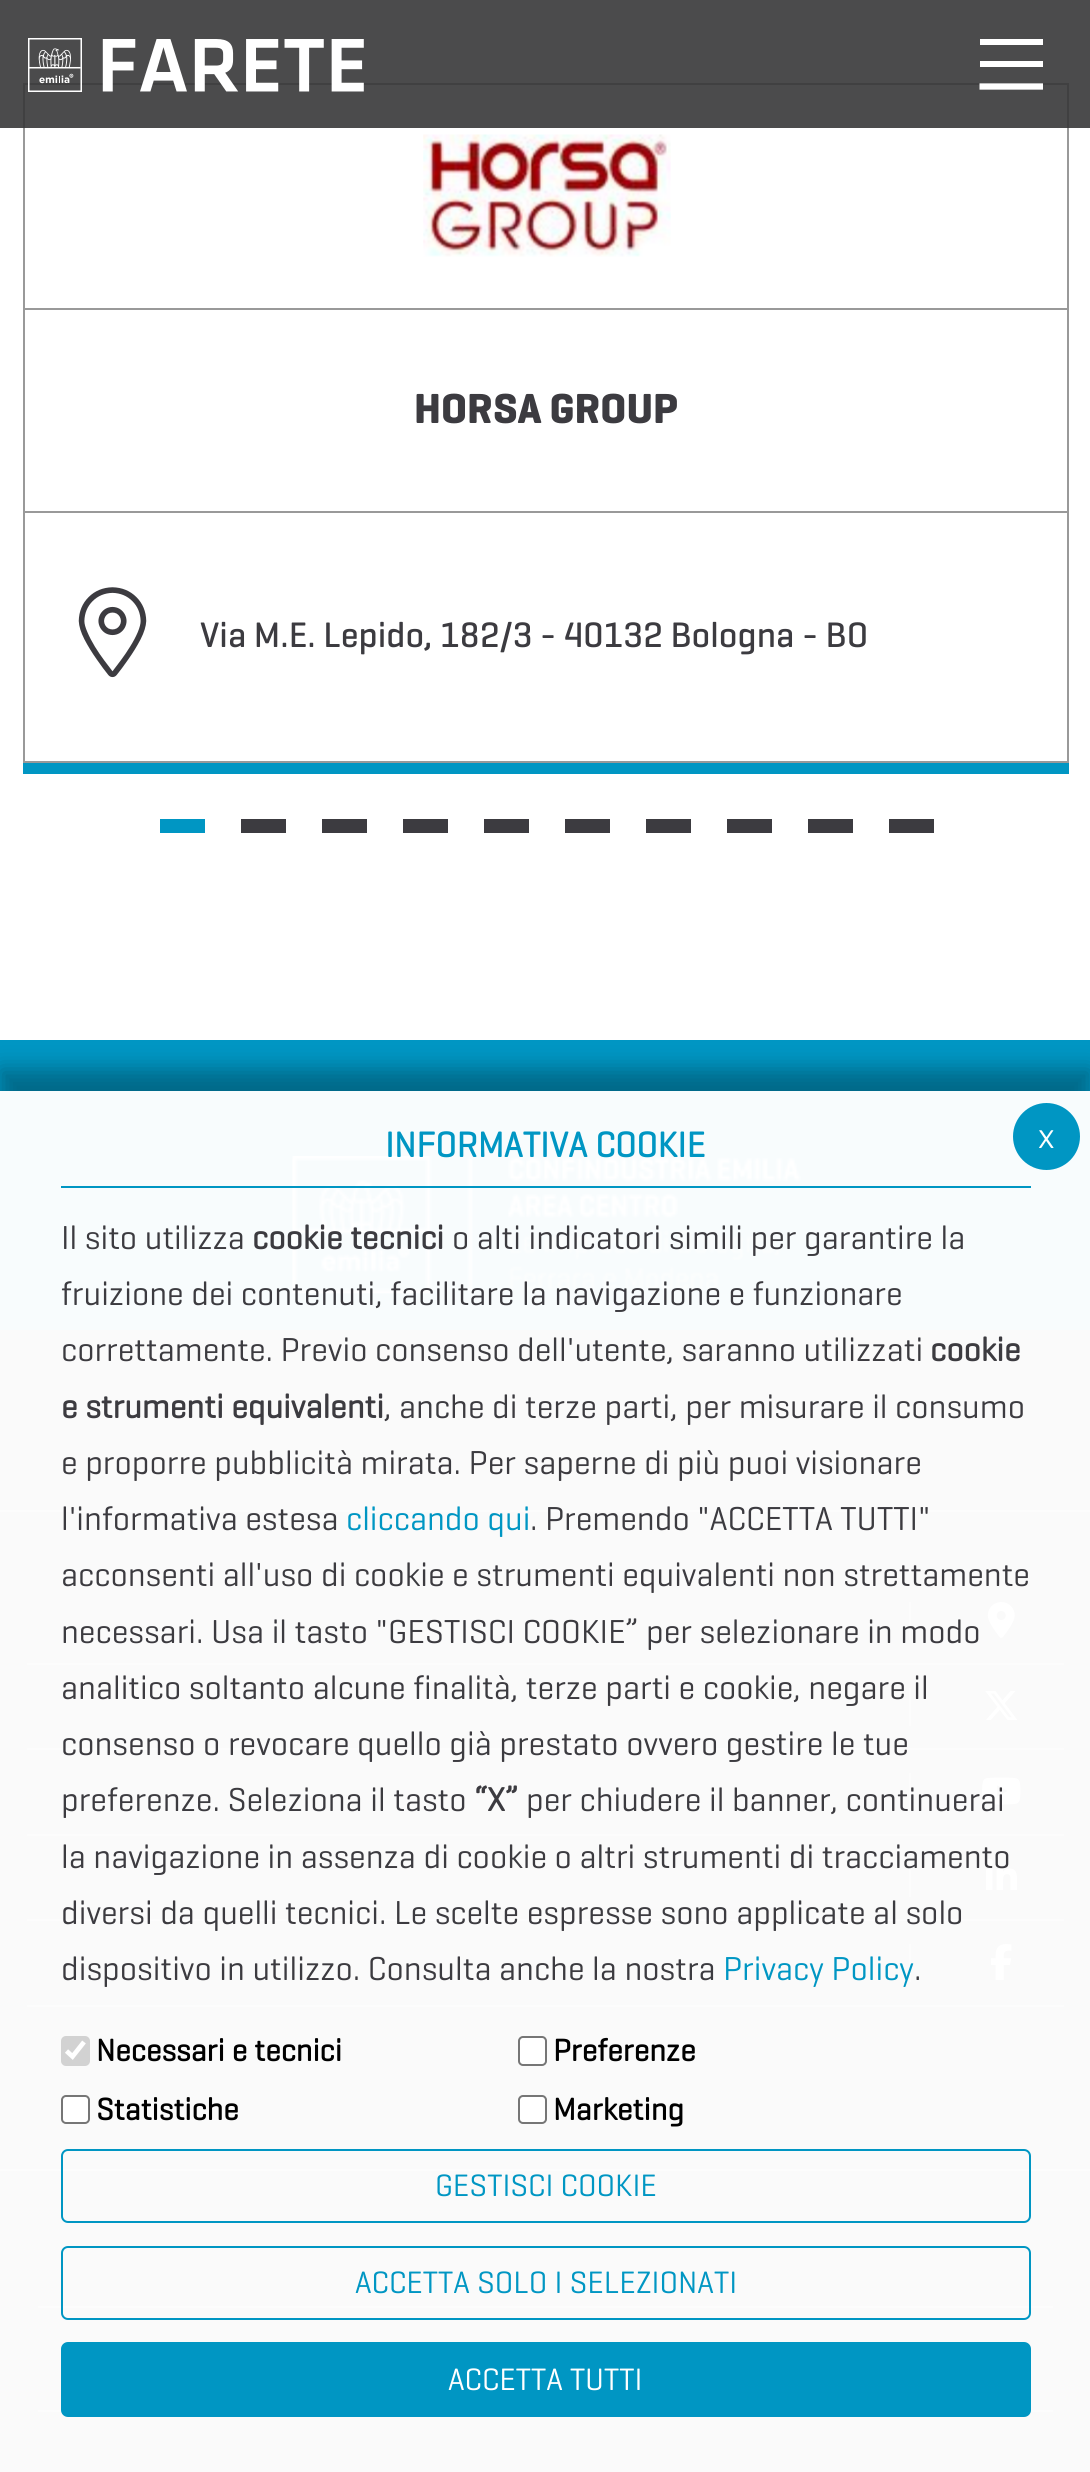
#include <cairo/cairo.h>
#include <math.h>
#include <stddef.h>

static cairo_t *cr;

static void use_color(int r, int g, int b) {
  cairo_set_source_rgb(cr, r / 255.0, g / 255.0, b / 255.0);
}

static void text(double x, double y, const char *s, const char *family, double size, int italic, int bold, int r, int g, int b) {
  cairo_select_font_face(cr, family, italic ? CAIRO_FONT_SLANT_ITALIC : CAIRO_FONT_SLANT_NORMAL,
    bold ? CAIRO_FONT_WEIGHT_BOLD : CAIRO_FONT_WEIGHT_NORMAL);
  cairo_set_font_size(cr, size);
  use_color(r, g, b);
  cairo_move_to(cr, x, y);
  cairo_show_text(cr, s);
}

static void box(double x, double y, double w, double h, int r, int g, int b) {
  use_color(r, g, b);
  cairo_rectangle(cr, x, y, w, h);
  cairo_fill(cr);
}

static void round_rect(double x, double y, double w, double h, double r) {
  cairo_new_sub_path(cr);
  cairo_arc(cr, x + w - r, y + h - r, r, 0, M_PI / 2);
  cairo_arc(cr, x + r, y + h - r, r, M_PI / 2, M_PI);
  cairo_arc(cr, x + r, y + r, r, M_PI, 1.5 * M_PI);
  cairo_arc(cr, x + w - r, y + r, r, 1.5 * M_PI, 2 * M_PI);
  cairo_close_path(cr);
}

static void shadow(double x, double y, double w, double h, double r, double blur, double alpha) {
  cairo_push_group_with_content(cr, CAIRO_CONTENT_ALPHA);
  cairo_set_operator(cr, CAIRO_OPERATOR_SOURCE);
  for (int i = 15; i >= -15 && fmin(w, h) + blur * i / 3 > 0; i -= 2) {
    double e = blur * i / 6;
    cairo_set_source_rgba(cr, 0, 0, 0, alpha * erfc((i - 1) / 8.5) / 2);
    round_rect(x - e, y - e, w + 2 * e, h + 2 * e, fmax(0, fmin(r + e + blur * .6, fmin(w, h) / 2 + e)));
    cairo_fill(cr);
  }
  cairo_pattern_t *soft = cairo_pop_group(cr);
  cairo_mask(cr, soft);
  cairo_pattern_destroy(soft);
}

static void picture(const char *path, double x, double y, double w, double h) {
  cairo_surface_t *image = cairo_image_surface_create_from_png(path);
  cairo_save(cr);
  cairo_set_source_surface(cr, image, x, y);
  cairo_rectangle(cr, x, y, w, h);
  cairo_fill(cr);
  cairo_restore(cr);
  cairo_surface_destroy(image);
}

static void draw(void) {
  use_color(255, 255, 255);
  cairo_paint(cr);
  box(0, 0, 1090, 128, 75, 75, 76);
  box(23, 83, 1046, 2, 64, 64, 65);
  picture("img_01.png", 28, 38, 336, 54);
  box(980, 39, 63, 6, 255, 255, 255);
  box(980, 61, 63, 6, 255, 255, 255);
  cairo_new_path(cr);
  cairo_move_to(cr, 979.5, 86.5);
  cairo_line_to(cr, 1043, 86.5);
  cairo_set_line_width(cr, 6.3);
  cairo_stroke(cr);
  box(23, 763, 1046, 11, 0, 150, 195);
  box(1067, 128, 2, 180, 153, 153, 153);
  box(1067, 83, 2, 45, 64, 64, 65);
  box(23, 128, 2, 180, 153, 153, 153);
  box(23, 83, 2, 45, 64, 64, 65);
  picture("img_02.png", 423, 134, 248, 123);
  cairo_rectangle(cr, 24, 309, 1044, 453);
  use_color(153, 153, 153);
  cairo_set_line_width(cr, 2);
  cairo_stroke(cr);
  box(25, 511, 1042, 2, 153, 153, 153);
  picture("img_03.png", 78, 587, 69, 91);
  box(160, 819, 45, 14, 0, 150, 195);
  box(241, 819, 45, 14, 60, 59, 64);
  box(322, 819, 45, 14, 60, 59, 64);
  box(403, 819, 45, 14, 60, 59, 64);
  box(484, 819, 45, 14, 60, 59, 64);
  box(565, 819, 45, 14, 60, 59, 64);
  box(646, 819, 45, 14, 60, 59, 64);
  box(727, 819, 45, 14, 60, 59, 64);
  box(808, 819, 45, 14, 60, 59, 64);
  box(889, 819, 45, 14, 60, 59, 64);
  box(0, 1040, 1090, 290, 0, 150, 195);
  picture("img_04.png", 292, 1156, 509, 138);
  box(0, 1330, 1090, 1142, 60, 59, 64);
  box(0, 1510, 1090, 2, 153, 153, 153);
  box(27, 1663, 1037, 2, 153, 153, 153);
  box(909, 1602, 2, 38, 153, 153, 153);
  picture("img_05.png", 987, 1602, 28, 36);
  box(27, 1748, 1037, 2, 153, 153, 153);
  box(909, 1688, 2, 38, 153, 153, 153);
  picture("img_06.png", 985, 1690, 33, 31);
  box(27, 1834, 1037, 2, 153, 153, 153);
  box(909, 1773, 2, 38, 153, 153, 153);
  picture("img_07.png", 982, 1777, 39, 28);
  box(27, 1919, 1037, 2, 153, 153, 153);
  box(909, 1859, 2, 38, 153, 153, 153);
  picture("img_08.png", 985, 1858, 32, 32);
  box(27, 2005, 1037, 2, 153, 153, 153);
  box(909, 1944, 2, 38, 153, 153, 153);
  picture("img_09.png", 991, 1944, 21, 36);
  box(0, 2169, 1090, 2, 153, 153, 153);
  box(38, 2306, 1015, 2, 153, 153, 153);
  box(38, 2410, 1015, 2, 153, 153, 153);
  cairo_save(cr);
  cairo_set_fill_rule(cr, CAIRO_FILL_RULE_EVEN_ODD);
  cairo_new_path(cr);
  cairo_move_to(cr, 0, 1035);
  cairo_line_to(cr, 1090, 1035);
  cairo_line_to(cr, 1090, 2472);
  cairo_line_to(cr, 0, 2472);
  cairo_close_path(cr);
  cairo_move_to(cr, 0, 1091);
  cairo_line_to(cr, 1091, 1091);
  cairo_line_to(cr, 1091, 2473);
  cairo_line_to(cr, 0, 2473);
  cairo_close_path(cr);
  cairo_clip(cr);
  use_color(0, 0, 0);
  shadow(0, 1069, 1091, 1381, 0, 11, 0.3);
  cairo_restore(cr);
  cairo_set_source_rgba(cr, 1, 1, 1, 0.97);
  cairo_rectangle(cr, 0, 1091, 1090, 1381);
  cairo_fill(cr);
  box(61, 1186, 970, 2, 0, 150, 195);
  use_color(210, 210, 210);
  round_rect(61, 2036, 29, 30, 5);
  cairo_fill(cr);
  cairo_new_path(cr);
  cairo_move_to(cr, 66.5, 2051);
  cairo_line_to(cr, 72.5, 2056.5);
  cairo_line_to(cr, 84, 2042);
  use_color(255, 255, 255);
  cairo_set_line_width(cr, 4.7);
  cairo_stroke(cr);
  round_rect(519, 2037, 27, 28, 4);
  cairo_fill_preserve(cr);
  use_color(118, 118, 118);
  cairo_set_line_width(cr, 2);
  cairo_stroke(cr);
  use_color(255, 255, 255);
  round_rect(62, 2096, 27, 27, 4);
  cairo_fill_preserve(cr);
  use_color(118, 118, 118);
  cairo_stroke(cr);
  use_color(255, 255, 255);
  round_rect(519, 2096, 27, 27, 4);
  cairo_fill_preserve(cr);
  use_color(118, 118, 118);
  cairo_stroke(cr);
  round_rect(62, 2150, 968, 72, 6);
  use_color(0, 150, 195);
  cairo_stroke(cr);
  round_rect(62, 2247, 968, 72, 6);
  cairo_stroke(cr);
  round_rect(62, 2343, 968, 73, 6);
  cairo_fill_preserve(cr);
  cairo_stroke(cr);
  cairo_arc(cr, 1046.5, 1136.5, 33.5, 0, 2 * M_PI);
  cairo_fill(cr);
  text(414, 423, "HORSA GROUP", "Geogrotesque", 42.75, 0, 1, 60, 59, 64);
  text(200, 647, "Via M.E. Lepido, 182/3 - 40132 Bologna - BO", "Geogrotesque Medium", 36, 0, 0, 60, 59, 64);
  text(385, 1157, "INFORMATIVA COOKIE", "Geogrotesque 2", 36, 0, 1, 0, 150, 195);
  text(61, 1249, "Il sito utilizza", "Geogrotesque", 33.75, 0, 0, 60, 59, 64);
  text(252, 1249, "cookie tecnici", "Geogrotesque 2", 33.75, 0, 1, 60, 59, 64);
  text(452, 1249, "o alti indicatori simili per garantire la", "Geogrotesque", 33.75, 0, 0, 60, 59, 64);
  text(61, 1305, "fruizione dei contenuti, facilitare la navigazione e funzionare", "Geogrotesque", 33.75, 0, 0, 60, 59, 64);
  text(61, 1361, "correttamente. Previo consenso dell'utente, saranno utilizzati", "Geogrotesque", 33.75, 0, 0, 60, 59, 64);
  text(930, 1361, "cookie", "Geogrotesque 2", 33.75, 0, 1, 60, 59, 64);
  text(61, 1418, "e strumenti equivalenti", "Geogrotesque 2", 33.75, 0, 1, 60, 59, 64);
  text(384, 1418, ", anche di terze parti, per misurare il consumo", "Geogrotesque", 33.75, 0, 0, 60, 59, 64);
  text(61, 1474, "e proporre pubblicità mirata. Per saperne di più puoi visionare", "Geogrotesque", 33.75, 0, 0, 60, 59, 64);
  text(61, 1530, "l'informativa estesa", "Geogrotesque", 33.75, 0, 0, 60, 59, 64);
  text(346, 1530, "cliccando qui", "Geogrotesque", 33.75, 0, 0, 0, 150, 195);
  text(530, 1530, ". Premendo \"ACCETTA TUTTI\"", "Geogrotesque", 33.75, 0, 0, 60, 59, 64);
  text(61, 1586, "acconsenti all'uso di cookie e strumenti equivalenti non strettamente", "Geogrotesque", 33.75, 0, 0, 60, 59, 64);
  text(61, 1643, "necessari. Usa il tasto \"GESTISCI COOKIE” per selezionare in modo", "Geogrotesque", 33.75, 0, 0, 60, 59, 64);
  text(61, 1699, "analitico soltanto alcune finalità, terze parti e cookie, negare il", "Geogrotesque", 33.75, 0, 0, 60, 59, 64);
  text(61, 1755, "consenso o revocare quello già prestato ovvero gestire le tue", "Geogrotesque", 33.75, 0, 0, 60, 59, 64);
  text(61, 1811, "preferenze. Seleziona il tasto", "Geogrotesque", 33.75, 0, 0, 60, 59, 64);
  text(474, 1811, "“X”", "Geogrotesque 2", 33.75, 0, 1, 60, 59, 64);
  text(526, 1811, "per chiudere il banner, continuerai", "Geogrotesque", 33.75, 0, 0, 60, 59, 64);
  text(61, 1868, "la navigazione in assenza di cookie o altri strumenti di tracciamento", "Geogrotesque", 33.75, 0, 0, 60, 59, 64);
  text(61, 1924, "diversi da quelli tecnici. Le scelte espresse sono applicate al solo", "Geogrotesque", 33.75, 0, 0, 60, 59, 64);
  text(61, 1980, "dispositivo in utilizzo. Consulta anche la nostra", "Geogrotesque", 33.75, 0, 0, 60, 59, 64);
  text(723, 1980, "Privacy Policy", "Geogrotesque", 33.75, 0, 0, 0, 150, 195);
  text(914, 1980, ".", "Geogrotesque", 33.75, 0, 0, 60, 59, 64);
  text(96, 2061, "Necessari e tecnici", "Geogrotesque 2", 31.5, 0, 1, 0, 0, 0);
  text(553, 2061, "Preferenze", "Geogrotesque 2", 31.5, 0, 1, 0, 0, 0);
  text(96, 2120, "Statistiche", "Geogrotesque 2", 31.5, 0, 1, 0, 0, 0);
  text(553, 2120, "Marketing", "Geogrotesque 2", 31.5, 0, 1, 0, 0, 0);
  text(435, 2196, "GESTISCI COOKIE", "Geogrotesque", 31.5, 0, 0, 0, 150, 195);
  text(355, 2293, "ACCETTA SOLO I SELEZIONATI", "Geogrotesque", 31.5, 0, 0, 0, 150, 195);
  text(448, 2390, "ACCETTA TUTTI", "Geogrotesque", 31.5, 0, 0, 255, 255, 255);
  text(1038, 1148, "x", "Geogrotesque", 36, 0, 0, 255, 255, 255);
}

int main(void) {
  cairo_surface_t *surface = cairo_image_surface_create(CAIRO_FORMAT_RGB24, 1090, 2472);
  cr = cairo_create(surface);
  cairo_font_options_t *options = cairo_font_options_create();
  cairo_font_options_set_hint_metrics(options, CAIRO_HINT_METRICS_OFF);
  cairo_font_options_set_hint_style(options, CAIRO_HINT_STYLE_NONE);
  cairo_set_font_options(cr, options);
  cairo_set_miter_limit(cr, 4);
  draw();
  cairo_surface_write_to_png(surface, "out.png");
  cairo_font_options_destroy(options);
  cairo_destroy(cr);
  cairo_surface_destroy(surface);
  return 0;
}
